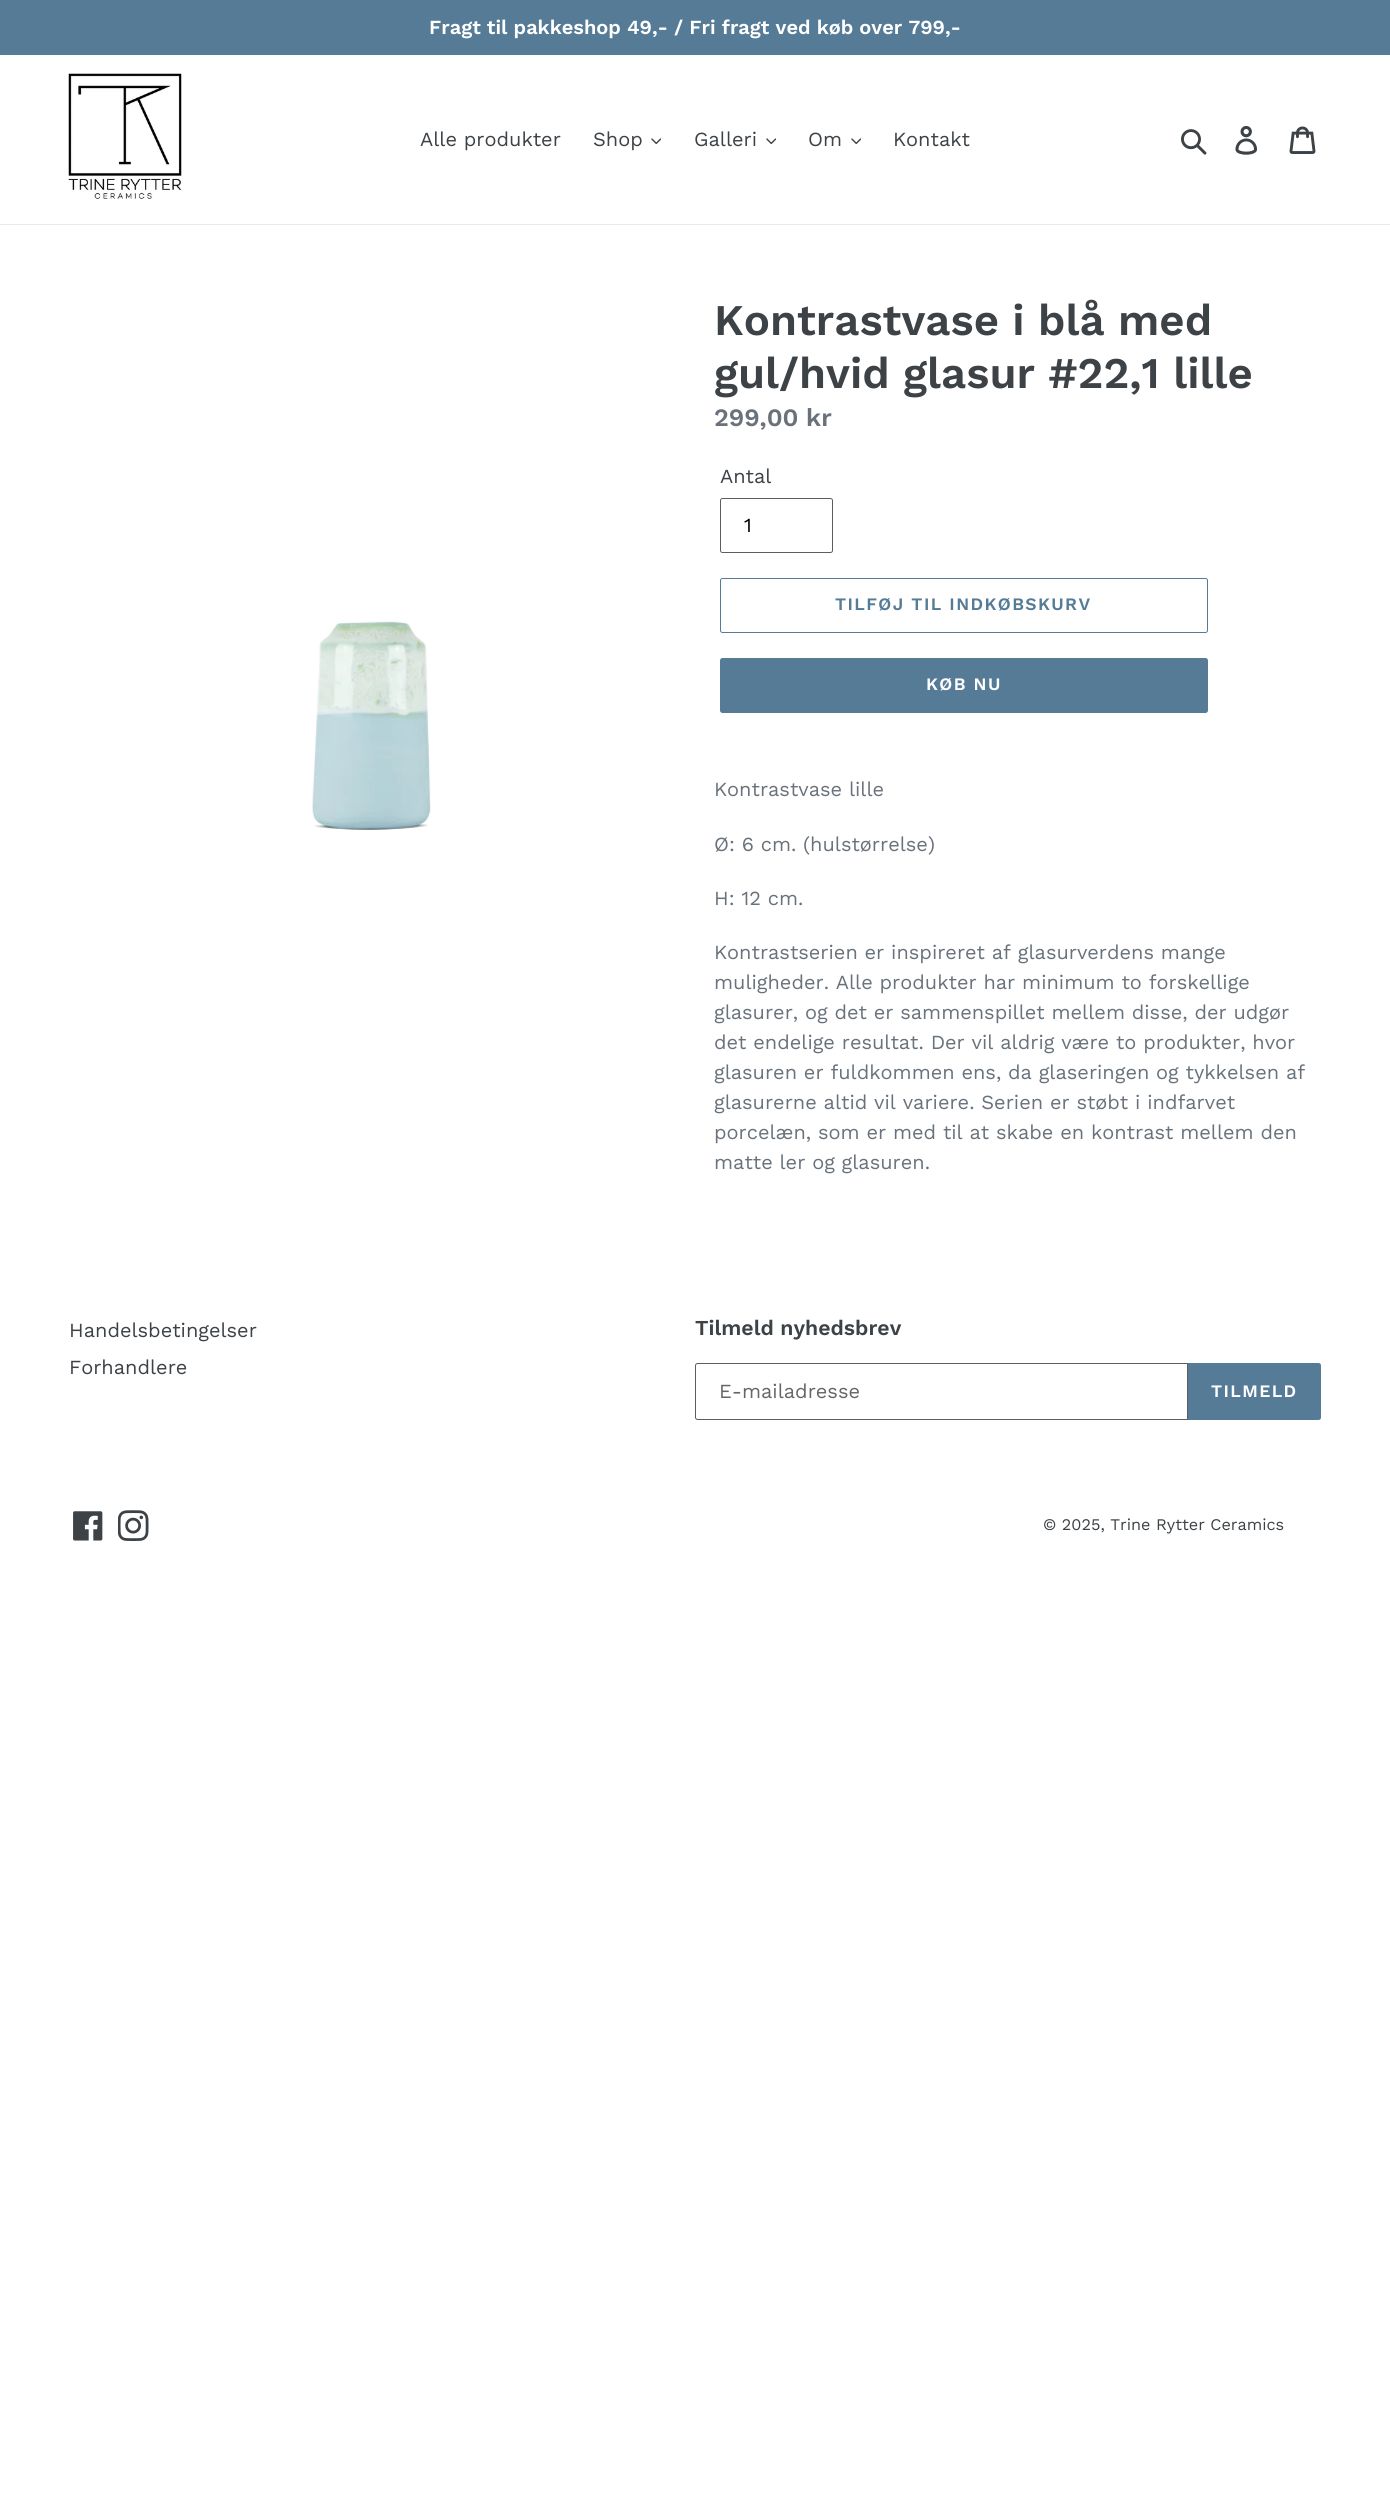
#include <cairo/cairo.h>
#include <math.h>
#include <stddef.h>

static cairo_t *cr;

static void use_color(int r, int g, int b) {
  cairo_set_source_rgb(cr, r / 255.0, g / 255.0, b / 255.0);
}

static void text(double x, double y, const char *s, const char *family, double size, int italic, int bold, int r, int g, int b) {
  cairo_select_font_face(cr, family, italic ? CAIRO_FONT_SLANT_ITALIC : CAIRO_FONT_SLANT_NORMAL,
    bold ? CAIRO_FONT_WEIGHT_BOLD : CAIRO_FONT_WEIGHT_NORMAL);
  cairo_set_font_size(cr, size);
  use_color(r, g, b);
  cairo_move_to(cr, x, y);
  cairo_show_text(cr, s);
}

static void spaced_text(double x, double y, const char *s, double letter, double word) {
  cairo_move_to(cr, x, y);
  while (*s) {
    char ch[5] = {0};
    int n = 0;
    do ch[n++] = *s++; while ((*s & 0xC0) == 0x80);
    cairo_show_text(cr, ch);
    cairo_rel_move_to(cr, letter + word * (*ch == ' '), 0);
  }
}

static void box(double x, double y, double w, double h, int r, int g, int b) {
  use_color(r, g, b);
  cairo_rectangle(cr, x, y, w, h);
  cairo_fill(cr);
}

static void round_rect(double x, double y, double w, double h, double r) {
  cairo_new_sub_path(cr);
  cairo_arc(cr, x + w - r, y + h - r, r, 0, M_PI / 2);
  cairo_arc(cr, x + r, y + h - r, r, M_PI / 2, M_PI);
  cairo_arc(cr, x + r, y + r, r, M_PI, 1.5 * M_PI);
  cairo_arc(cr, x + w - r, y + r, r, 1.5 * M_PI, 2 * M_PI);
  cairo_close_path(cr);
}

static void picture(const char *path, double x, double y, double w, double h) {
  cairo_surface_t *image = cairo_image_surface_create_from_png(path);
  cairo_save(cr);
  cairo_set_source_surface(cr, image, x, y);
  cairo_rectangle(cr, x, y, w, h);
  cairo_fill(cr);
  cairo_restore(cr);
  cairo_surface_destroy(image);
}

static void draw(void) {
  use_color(255, 255, 255);
  cairo_paint(cr);
  box(0, 0, 1390, 55, 85, 123, 151);
  box(0, 224, 1390, 1, 232, 233, 235);
  picture("img_01.png", 68, 73, 114, 126);
  picture("img_02.png", 651, 138, 10, 7);
  picture("img_02.png", 766, 138, 10, 7);
  picture("img_02.png", 851, 138, 10, 7);
  picture("img_03.png", 1181, 129, 26, 26);
  picture("img_04.png", 1235, 126, 23, 29);
  picture("img_05.png", 1289, 126, 27, 28);
  picture("img_06.png", 312, 621, 119, 209);
  round_rect(720.5, 498.5, 112, 54, 2);
  use_color(90, 94, 98);
  cairo_set_line_width(cr, 1);
  cairo_stroke(cr);
  round_rect(720.5, 578.5, 487, 54, 2);
  use_color(85, 123, 151);
  cairo_stroke(cr);
  round_rect(720, 658, 488, 55, 2.5);
  cairo_fill(cr);
  cairo_new_path(cr);
  cairo_move_to(cr, 697.5, 1363.5);
  cairo_line_to(cr, 1187.5, 1363.5);
  cairo_line_to(cr, 1187.5, 1419.5);
  cairo_line_to(cr, 697.5, 1419.5);
  cairo_curve_to(cr, 696.5, 1419.5, 695.5, 1418.5, 695.5, 1417.5);
  cairo_line_to(cr, 695.5, 1365.5);
  cairo_curve_to(cr, 695.5, 1364.5, 696.5, 1363.5, 697.5, 1363.5);
  cairo_close_path(cr);
  use_color(90, 94, 98);
  cairo_stroke(cr);
  use_color(85, 123, 151);
  cairo_new_path(cr);
  cairo_move_to(cr, 1188, 1363);
  cairo_line_to(cr, 1318.5, 1363);
  cairo_curve_to(cr, 1320, 1363, 1321, 1364, 1321, 1365.5);
  cairo_line_to(cr, 1321, 1417.5);
  cairo_curve_to(cr, 1321, 1419, 1320, 1420, 1318.5, 1420);
  cairo_line_to(cr, 1188, 1420);
  cairo_close_path(cr);
  cairo_fill(cr);
  picture("img_07.png", 73, 1511, 30, 30);
  picture("img_08.png", 118, 1510, 31, 31);
  text(429, 34, "Fragt til pakkeshop 49,- / Fri fragt ved køb over 799,-", "Work Sans SemiBold", 20, 0, 0, 255, 255, 255);
  text(420, 146, "Alle produkter", "Work Sans", 20, 0, 0, 61, 66, 70);
  text(593, 146, "Shop", "Work Sans", 20, 0, 0, 61, 66, 70);
  text(694, 146, "Galleri", "Work Sans", 20, 0, 0, 61, 66, 70);
  text(808, 146, "Om", "Work Sans", 20, 0, 0, 61, 66, 70);
  text(893, 146, "Kontakt", "Work Sans", 20, 0, 0, 61, 66, 70);
  text(714, 335, "Kontrastvase i blå med", "Work Sans SemiBold", 43.75, 0, 0, 61, 66, 70);
  text(714, 388, "gul/hvid glasur #22,1 lille", "Work Sans SemiBold", 43.75, 0, 0, 61, 66, 70);
  text(714, 426, "299,00 kr", "Work Sans SemiBold", 25, 0, 0, 105, 114, 123);
  text(720, 483, "Antal", "Work Sans", 20, 0, 0, 61, 66, 70);
  text(744, 532, "1", "Work Sans", 20, 0, 0, 0, 0, 0);
  cairo_select_font_face(cr, "Work Sans SemiBold", CAIRO_FONT_SLANT_NORMAL, CAIRO_FONT_WEIGHT_NORMAL);
  cairo_set_font_size(cr, 17.5);
  use_color(85, 123, 151);
  spaced_text(835, 610, "TILFØJ TIL INDKØBSKURV", 1.4, 0);
  use_color(255, 255, 255);
  spaced_text(926, 690, "KØB NU", 1.4, 0);
  text(714, 796, "Kontrastvase lille", "Work Sans", 20, 0, 0, 105, 114, 123);
  text(714, 851, "Ø: 6 cm. (hulstørrelse)", "Work Sans", 20, 0, 0, 105, 114, 123);
  text(714, 905, "H: 12 cm.", "Work Sans", 20, 0, 0, 105, 114, 123);
  text(714, 959, "Kontrastserien er inspireret af glasurverdens mange", "Work Sans", 20, 0, 0, 105, 114, 123);
  text(714, 989, "muligheder. Alle produkter har minimum to forskellige", "Work Sans", 20, 0, 0, 105, 114, 123);
  text(714, 1019, "glasurer, og det er sammenspillet mellem disse, der udgør", "Work Sans", 20, 0, 0, 105, 114, 123);
  text(714, 1049, "det endelige resultat. Der vil aldrig være to produkter, hvor", "Work Sans", 20, 0, 0, 105, 114, 123);
  text(714, 1079, "glasuren er fuldkommen ens, da glaseringen og tykkelsen af", "Work Sans", 20, 0, 0, 105, 114, 123);
  text(714, 1109, "glasurerne altid vil variere. Serien er støbt i indfarvet", "Work Sans", 20, 0, 0, 105, 114, 123);
  text(714, 1139, "porcelæn, som er med til at skabe en kontrast mellem den", "Work Sans", 20, 0, 0, 105, 114, 123);
  text(714, 1169, "matte ler og glasuren.", "Work Sans", 20, 0, 0, 105, 114, 123);
  text(69, 1337, "Handelsbetingelser", "Work Sans", 20, 0, 0, 61, 66, 70);
  text(69, 1374, "Forhandlere", "Work Sans", 20, 0, 0, 61, 66, 70);
  text(695, 1335, "Tilmeld nyhedsbrev", "Work Sans SemiBold", 21.25, 0, 0, 61, 66, 70);
  text(719, 1398, "E-mailadresse", "Work Sans", 20, 0, 0, 102, 102, 102);
  cairo_select_font_face(cr, "Work Sans SemiBold", CAIRO_FONT_SLANT_NORMAL, CAIRO_FONT_WEIGHT_NORMAL);
  cairo_set_font_size(cr, 17.5);
  use_color(255, 255, 255);
  spaced_text(1211, 1397, "TILMELD", 1.4, 0);
  text(1043, 1530, "© 2025, Trine Rytter Ceramics", "Work Sans", 16.25, 0, 0, 61, 66, 70);
}

int main(void) {
  cairo_surface_t *surface = cairo_image_surface_create(CAIRO_FORMAT_RGB24, 1390, 2519);
  cr = cairo_create(surface);
  cairo_font_options_t *options = cairo_font_options_create();
  cairo_font_options_set_hint_metrics(options, CAIRO_HINT_METRICS_OFF);
  cairo_font_options_set_hint_style(options, CAIRO_HINT_STYLE_NONE);
  cairo_set_font_options(cr, options);
  cairo_set_miter_limit(cr, 4);
  draw();
  cairo_surface_write_to_png(surface, "out.png");
  cairo_font_options_destroy(options);
  cairo_destroy(cr);
  cairo_surface_destroy(surface);
  return 0;
}
